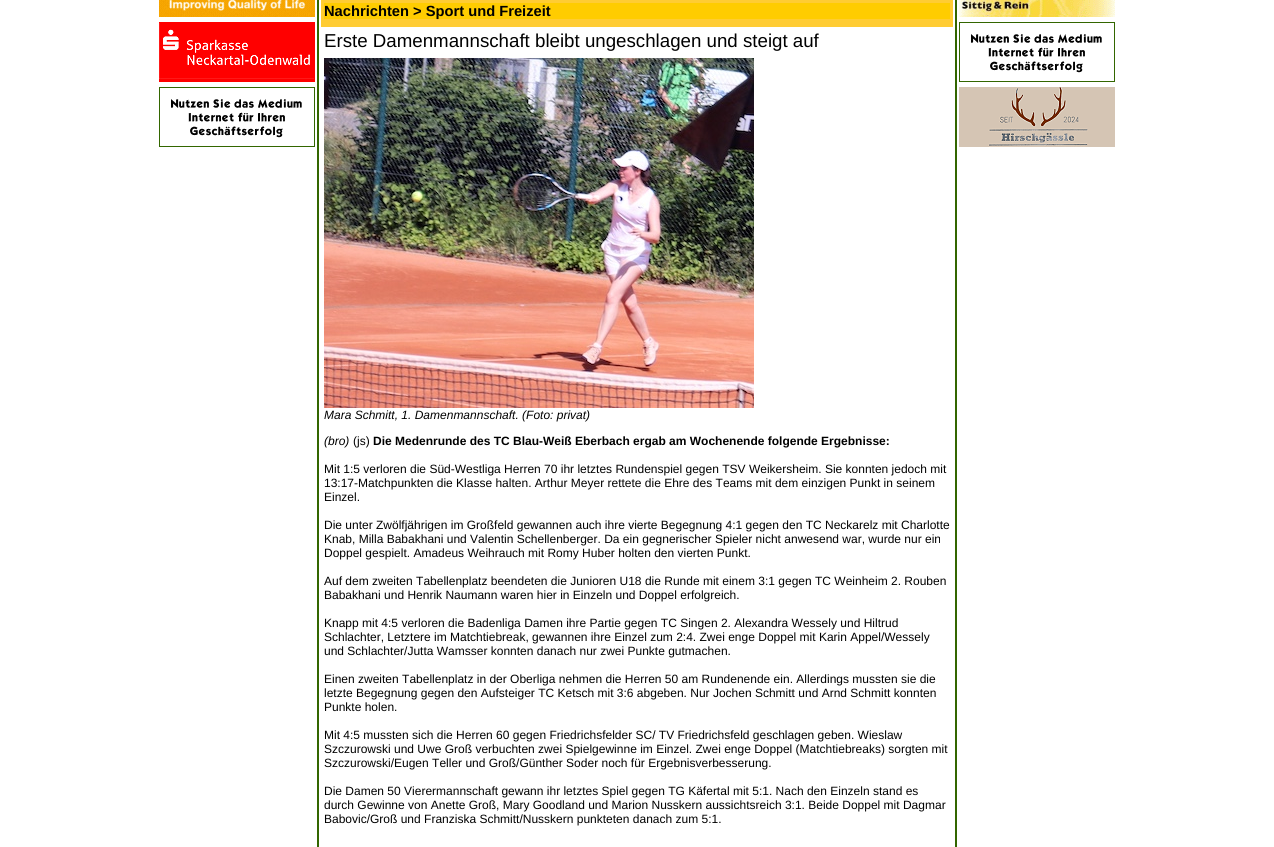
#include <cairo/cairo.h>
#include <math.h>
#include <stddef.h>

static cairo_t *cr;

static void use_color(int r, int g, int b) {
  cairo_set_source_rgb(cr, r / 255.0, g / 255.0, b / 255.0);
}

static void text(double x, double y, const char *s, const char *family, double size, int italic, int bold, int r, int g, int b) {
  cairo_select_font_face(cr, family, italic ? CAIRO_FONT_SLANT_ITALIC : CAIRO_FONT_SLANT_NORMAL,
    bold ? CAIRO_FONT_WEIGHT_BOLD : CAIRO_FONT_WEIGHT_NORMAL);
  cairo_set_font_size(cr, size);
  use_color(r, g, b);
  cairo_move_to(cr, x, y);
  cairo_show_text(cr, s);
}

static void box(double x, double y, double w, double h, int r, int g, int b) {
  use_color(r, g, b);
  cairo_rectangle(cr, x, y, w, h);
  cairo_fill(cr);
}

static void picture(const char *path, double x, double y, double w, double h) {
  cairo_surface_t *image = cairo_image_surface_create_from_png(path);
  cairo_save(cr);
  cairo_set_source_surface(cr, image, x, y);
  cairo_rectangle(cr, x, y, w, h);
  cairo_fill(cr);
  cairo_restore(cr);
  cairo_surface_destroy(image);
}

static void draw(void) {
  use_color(255, 255, 255);
  cairo_paint(cr);
  picture("img_01.png", 159, 0, 156, 17);
  picture("img_02.png", 159, 22, 156, 60);
  picture("img_03.png", 159, 87, 156, 60);
  box(317, 0, 640, 847, 51, 102, 0);
  box(319, 0, 636, 847, 255, 255, 255);
  box(321, 0, 632, 27, 255, 204, 51);
  box(324, 3, 626, 16, 255, 204, 0);
  picture("img_04.png", 324, 58, 430, 350);
  picture("img_05.png", 959, 0, 156, 17);
  picture("img_03.png", 959, 22, 156, 60);
  picture("img_06.png", 959, 87, 156, 60);
  text(324, 16, "Nachrichten > Sport und Freizeit", "Liberation Sans", 14.7, 0, 1, 0, 0, 0);
  text(324, 47, "Erste Damenmannschaft bleibt ungeschlagen und steigt auf", "Liberation Sans", 18.7, 0, 0, 0, 0, 0);
  text(324, 419, "Mara Schmitt, 1. Damenmannschaft. (Foto: privat)", "Liberation Sans", 12, 1, 0, 0, 0, 0);
  text(324, 445, "(bro)", "Liberation Sans", 12, 1, 0, 0, 0, 0);
  text(353, 445, "(js)", "Liberation Sans", 12, 0, 0, 0, 0, 0);
  text(373, 445, "Die Medenrunde des TC Blau-Weiß Eberbach ergab am Wochenende folgende Ergebnisse:", "Liberation Sans", 12, 0, 1, 0, 0, 0);
  text(324, 473, "Mit 1:5 verloren die Süd-Westliga Herren 70 ihr letztes Rundenspiel gegen TSV Weikersheim. Sie konnten jedoch mit", "Liberation Sans", 12, 0, 0, 0, 0, 0);
  text(324, 487, "13:17-Matchpunkten die Klasse halten. Arthur Meyer rettete die Ehre des Teams mit dem einzigen Punkt in seinem", "Liberation Sans", 12, 0, 0, 0, 0, 0);
  text(324, 501, "Einzel.", "Liberation Sans", 12, 0, 0, 0, 0, 0);
  text(324, 529, "Die unter Zwölfjährigen im Großfeld gewannen auch ihre vierte Begegnung 4:1 gegen den TC Neckarelz mit Charlotte", "Liberation Sans", 12, 0, 0, 0, 0, 0);
  text(324, 543, "Knab, Milla Babakhani und Valentin Schellenberger. Da ein gegnerischer Spieler nicht anwesend war, wurde nur ein", "Liberation Sans", 12, 0, 0, 0, 0, 0);
  text(324, 557, "Doppel gespielt. Amadeus Weihrauch mit Romy Huber holten den vierten Punkt.", "Liberation Sans", 12, 0, 0, 0, 0, 0);
  text(324, 585, "Auf dem zweiten Tabellenplatz beendeten die Junioren U18 die Runde mit einem 3:1 gegen TC Weinheim 2. Rouben", "Liberation Sans", 12, 0, 0, 0, 0, 0);
  text(324, 599, "Babakhani und Henrik Naumann waren hier in Einzeln und Doppel erfolgreich.", "Liberation Sans", 12, 0, 0, 0, 0, 0);
  text(324, 627, "Knapp mit 4:5 verloren die Badenliga Damen ihre Partie gegen TC Singen 2. Alexandra Wessely und Hiltrud", "Liberation Sans", 12, 0, 0, 0, 0, 0);
  text(324, 641, "Schlachter, Letztere im Matchtiebreak, gewannen ihre Einzel zum 2:4. Zwei enge Doppel mit Karin Appel/Wessely", "Liberation Sans", 12, 0, 0, 0, 0, 0);
  text(324, 655, "und Schlachter/Jutta Wamsser konnten danach nur zwei Punkte gutmachen.", "Liberation Sans", 12, 0, 0, 0, 0, 0);
  text(324, 683, "Einen zweiten Tabellenplatz in der Oberliga nehmen die Herren 50 am Rundenende ein. Allerdings mussten sie die", "Liberation Sans", 12, 0, 0, 0, 0, 0);
  text(324, 697, "letzte Begegnung gegen den Aufsteiger TC Ketsch mit 3:6 abgeben. Nur Jochen Schmitt und Arnd Schmitt konnten", "Liberation Sans", 12, 0, 0, 0, 0, 0);
  text(324, 711, "Punkte holen.", "Liberation Sans", 12, 0, 0, 0, 0, 0);
  text(324, 739, "Mit 4:5 mussten sich die Herren 60 gegen Friedrichsfelder SC/ TV Friedrichsfeld geschlagen geben. Wieslaw", "Liberation Sans", 12, 0, 0, 0, 0, 0);
  text(324, 753, "Szczurowski und Uwe Groß verbuchten zwei Spielgewinne im Einzel. Zwei enge Doppel (Matchtiebreaks) sorgten mit", "Liberation Sans", 12, 0, 0, 0, 0, 0);
  text(324, 767, "Szczurowski/Eugen Teller und Groß/Günther Soder noch für Ergebnisverbesserung.", "Liberation Sans", 12, 0, 0, 0, 0, 0);
  text(324, 795, "Die Damen 50 Vierermannschaft gewann ihr letztes Spiel gegen TG Käfertal mit 5:1. Nach den Einzeln stand es", "Liberation Sans", 12, 0, 0, 0, 0, 0);
  text(324, 809, "durch Gewinne von Anette Groß, Mary Goodland und Marion Nusskern aussichtsreich 3:1. Beide Doppel mit Dagmar", "Liberation Sans", 12, 0, 0, 0, 0, 0);
  text(324, 823, "Babovic/Groß und Franziska Schmitt/Nusskern punkteten danach zum 5:1.", "Liberation Sans", 12, 0, 0, 0, 0, 0);
}

int main(void) {
  cairo_surface_t *surface = cairo_image_surface_create(CAIRO_FORMAT_RGB24, 1274, 847);
  cr = cairo_create(surface);
  cairo_font_options_t *options = cairo_font_options_create();
  cairo_font_options_set_hint_metrics(options, CAIRO_HINT_METRICS_OFF);
  cairo_font_options_set_hint_style(options, CAIRO_HINT_STYLE_NONE);
  cairo_set_font_options(cr, options);
  cairo_set_miter_limit(cr, 4);
  draw();
  cairo_surface_write_to_png(surface, "out.png");
  cairo_font_options_destroy(options);
  cairo_destroy(cr);
  cairo_surface_destroy(surface);
  return 0;
}
